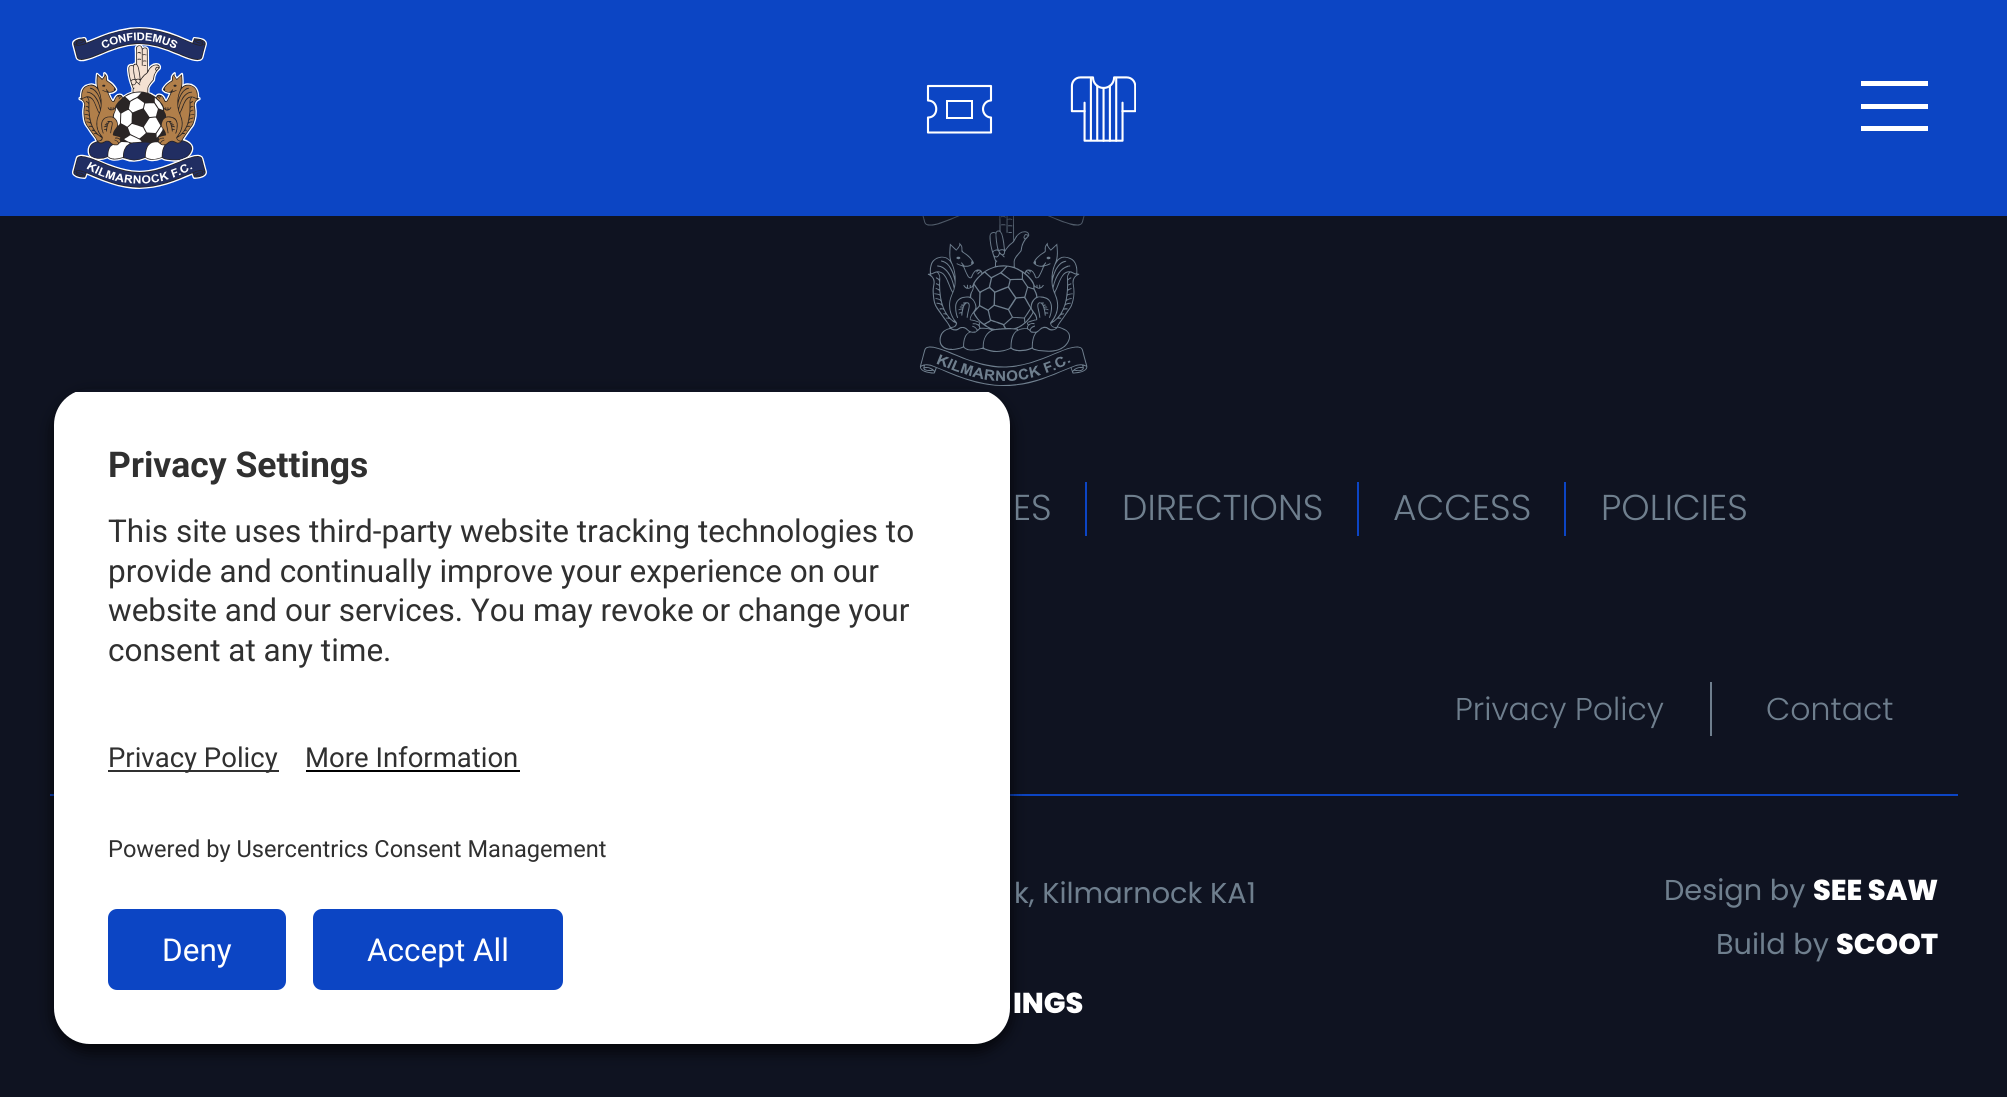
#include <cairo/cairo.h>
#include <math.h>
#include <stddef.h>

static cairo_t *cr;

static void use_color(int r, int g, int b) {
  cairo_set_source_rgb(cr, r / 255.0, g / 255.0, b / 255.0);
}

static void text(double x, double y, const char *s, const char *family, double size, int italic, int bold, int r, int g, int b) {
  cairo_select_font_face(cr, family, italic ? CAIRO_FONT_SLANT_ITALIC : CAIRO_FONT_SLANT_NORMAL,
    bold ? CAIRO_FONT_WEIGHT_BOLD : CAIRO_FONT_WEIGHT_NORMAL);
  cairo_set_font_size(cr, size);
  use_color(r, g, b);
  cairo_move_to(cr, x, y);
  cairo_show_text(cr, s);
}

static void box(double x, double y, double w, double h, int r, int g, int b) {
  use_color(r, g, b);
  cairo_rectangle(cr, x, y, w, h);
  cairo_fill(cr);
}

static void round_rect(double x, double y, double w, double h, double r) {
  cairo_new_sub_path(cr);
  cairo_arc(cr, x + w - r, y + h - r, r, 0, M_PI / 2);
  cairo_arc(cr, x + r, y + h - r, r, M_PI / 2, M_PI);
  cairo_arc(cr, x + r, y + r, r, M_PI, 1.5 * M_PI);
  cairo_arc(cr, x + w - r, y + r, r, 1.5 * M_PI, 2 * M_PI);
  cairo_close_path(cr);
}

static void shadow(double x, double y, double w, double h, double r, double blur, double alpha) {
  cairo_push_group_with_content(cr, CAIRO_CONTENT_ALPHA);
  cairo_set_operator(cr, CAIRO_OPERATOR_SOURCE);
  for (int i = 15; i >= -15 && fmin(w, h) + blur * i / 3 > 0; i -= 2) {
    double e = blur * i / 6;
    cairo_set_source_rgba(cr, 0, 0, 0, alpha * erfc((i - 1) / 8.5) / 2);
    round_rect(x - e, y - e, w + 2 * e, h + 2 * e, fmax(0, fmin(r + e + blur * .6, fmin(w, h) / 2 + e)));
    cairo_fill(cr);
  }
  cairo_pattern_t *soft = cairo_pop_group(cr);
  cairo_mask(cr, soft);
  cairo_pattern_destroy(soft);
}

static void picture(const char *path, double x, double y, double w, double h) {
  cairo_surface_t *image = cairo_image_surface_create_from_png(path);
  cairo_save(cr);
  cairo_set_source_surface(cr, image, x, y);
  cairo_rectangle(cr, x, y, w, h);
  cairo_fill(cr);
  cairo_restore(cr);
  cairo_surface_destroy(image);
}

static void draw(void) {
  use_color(15, 19, 33);
  cairo_paint(cr);
  picture("img_03.png", 919, 216, 169, 170);
  box(50, 794, 1908, 2, 12, 69, 196);
  cairo_save(cr);
  cairo_set_fill_rule(cr, CAIRO_FILL_RULE_EVEN_ODD);
  cairo_new_path(cr);
  cairo_move_to(cr, 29, 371);
  cairo_line_to(cr, 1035, 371);
  cairo_line_to(cr, 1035, 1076);
  cairo_line_to(cr, 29, 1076);
  cairo_close_path(cr);
  cairo_move_to(cr, 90, 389);
  cairo_line_to(cr, 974, 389);
  cairo_curve_to(cr, 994, 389, 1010, 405, 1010, 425);
  cairo_line_to(cr, 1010, 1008);
  cairo_curve_to(cr, 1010, 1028, 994, 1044, 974, 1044);
  cairo_line_to(cr, 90, 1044);
  cairo_curve_to(cr, 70, 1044, 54, 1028, 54, 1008);
  cairo_line_to(cr, 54, 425);
  cairo_curve_to(cr, 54, 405, 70, 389, 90, 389);
  cairo_close_path(cr);
  cairo_clip(cr);
  use_color(0, 0, 0);
  shadow(54, 396, 956, 655, 36, 8, 0.8);
  cairo_restore(cr);
  cairo_save(cr);
  cairo_new_path(cr);
  cairo_move_to(cr, 90, 389);
  cairo_line_to(cr, 974, 389);
  cairo_curve_to(cr, 994, 389, 1010, 405, 1010, 425);
  cairo_line_to(cr, 1010, 680);
  cairo_line_to(cr, 54, 680);
  cairo_line_to(cr, 54, 425);
  cairo_curve_to(cr, 54, 405, 70, 389, 90, 389);
  cairo_close_path(cr);
  cairo_clip(cr);
  box(54, 392, 956, 288, 255, 255, 255);
  cairo_restore(cr);
  use_color(255, 255, 255);
  cairo_new_path(cr);
  cairo_move_to(cr, 54, 680);
  cairo_line_to(cr, 1010, 680);
  cairo_line_to(cr, 1010, 1008);
  cairo_curve_to(cr, 1010, 1028, 994, 1044, 974, 1044);
  cairo_line_to(cr, 90, 1044);
  cairo_curve_to(cr, 70, 1044, 54, 1028, 54, 1008);
  cairo_close_path(cr);
  cairo_fill(cr);
  box(108, 770, 171, 2, 48, 48, 48);
  box(306, 770, 214, 2, 0, 0, 0);
  use_color(12, 69, 196);
  round_rect(108, 909, 178, 81, 9);
  cairo_fill(cr);
  round_rect(313, 909, 250, 81, 9);
  cairo_fill(cr);
  use_color(15, 19, 33);
  shadow(0, 0, 2007, 216, 0, 17, 1);
  box(0, 0, 2007, 216, 12, 69, 196);
  picture("img_01.png", 72, 27, 135, 162);
  cairo_rectangle(cr, 947, 101, 25, 17);
  use_color(255, 255, 255);
  cairo_stroke(cr);
  cairo_new_path(cr);
  cairo_move_to(cr, 983, 109);
  cairo_curve_to(cr, 983, 104.5, 986.5, 100.5, 991, 100.5);
  cairo_line_to(cr, 991, 86);
  cairo_line_to(cr, 928, 86);
  cairo_line_to(cr, 928, 100.5);
  cairo_curve_to(cr, 939, 100.5, 939, 117.5, 928, 117.5);
  cairo_line_to(cr, 928, 132.5);
  cairo_line_to(cr, 991, 132.5);
  cairo_line_to(cr, 991, 117.5);
  cairo_curve_to(cr, 986.5, 117.5, 983, 113.5, 983, 109);
  cairo_close_path(cr);
  cairo_set_line_width(cr, 2.1);
  cairo_set_line_cap(cr, CAIRO_LINE_CAP_ROUND);
  cairo_set_line_join(cr, CAIRO_LINE_JOIN_ROUND);
  cairo_stroke(cr);
  picture("img_02.png", 1070, 76, 66, 66);
  box(1861, 81, 67, 5, 255, 255, 255);
  box(1861, 104, 67, 5, 255, 255, 255);
  box(1861, 126, 67, 5, 255, 255, 255);
  box(1085, 482, 2, 54, 12, 69, 196);
  box(1357, 482, 2, 54, 12, 69, 196);
  box(1564, 482, 2, 54, 12, 69, 196);
  box(1710, 682, 2, 54, 111, 127, 142);
  text(108, 477, "Privacy Settings", "Roboto", 35.5, 0, 1, 48, 48, 48);
  text(108, 542, "This site uses third-party website tracking technologies to", "Roboto", 31.5, 0, 0, 48, 48, 48);
  text(108, 582, "provide and continually improve your experience on our", "Roboto", 31.5, 0, 0, 48, 48, 48);
  text(108, 621, "website and our services. You may revoke or change your", "Roboto", 31.5, 0, 0, 48, 48, 48);
  text(108, 661, "consent at any time.", "Roboto", 31.5, 0, 0, 48, 48, 48);
  text(108, 767, "Privacy Policy", "Roboto", 27.5, 0, 0, 48, 48, 48);
  text(305, 767, "More Information", "Roboto", 27.5, 0, 0, 48, 48, 48);
  text(108, 857, "Powered by Usercentrics Consent Management", "Roboto", 23.6, 0, 0, 48, 48, 48);
  text(162, 961, "Deny", "Roboto", 31.5, 0, 0, 255, 255, 255);
  text(367, 961, "Accept All", "Roboto", 31.5, 0, 0, 255, 255, 255);
  text(1013, 520, "ES", "Poppins Light", 36, 0, 0, 111, 127, 142);
  text(1122, 520, "DIRECTIONS", "Poppins Light", 36, 0, 0, 111, 127, 142);
  text(1393, 520, "ACCESS", "Poppins Light", 36, 0, 0, 111, 127, 142);
  text(1601, 520, "POLICIES", "Poppins Light", 36, 0, 0, 111, 127, 142);
  text(1455, 720, "Privacy Policy", "Poppins Light", 31.5, 0, 0, 111, 127, 142);
  text(1766, 720, "Contact", "Poppins Light", 31.5, 0, 0, 111, 127, 142);
  text(1014, 903, "k, Kilmarnock KA1", "Poppins", 28.75, 0, 0, 111, 127, 142);
  text(1013, 1013, "INGS", "Poppins ExtraBold", 28.75, 0, 0, 255, 255, 255);
  text(1664, 900, "Design by", "Poppins", 28.75, 0, 0, 111, 127, 142);
  text(1813, 900, "SEE SAW", "Poppins ExtraBold", 28.75, 0, 0, 255, 255, 255);
  text(1716, 954, "Build by", "Poppins", 28.75, 0, 0, 111, 127, 142);
  text(1836, 954, "SCOOT", "Poppins ExtraBold", 28.75, 0, 0, 255, 255, 255);
}

int main(void) {
  cairo_surface_t *surface = cairo_image_surface_create(CAIRO_FORMAT_RGB24, 2007, 1097);
  cr = cairo_create(surface);
  cairo_font_options_t *options = cairo_font_options_create();
  cairo_font_options_set_hint_metrics(options, CAIRO_HINT_METRICS_OFF);
  cairo_font_options_set_hint_style(options, CAIRO_HINT_STYLE_NONE);
  cairo_set_font_options(cr, options);
  cairo_set_miter_limit(cr, 4);
  draw();
  cairo_surface_write_to_png(surface, "out.png");
  cairo_font_options_destroy(options);
  cairo_destroy(cr);
  cairo_surface_destroy(surface);
  return 0;
}
